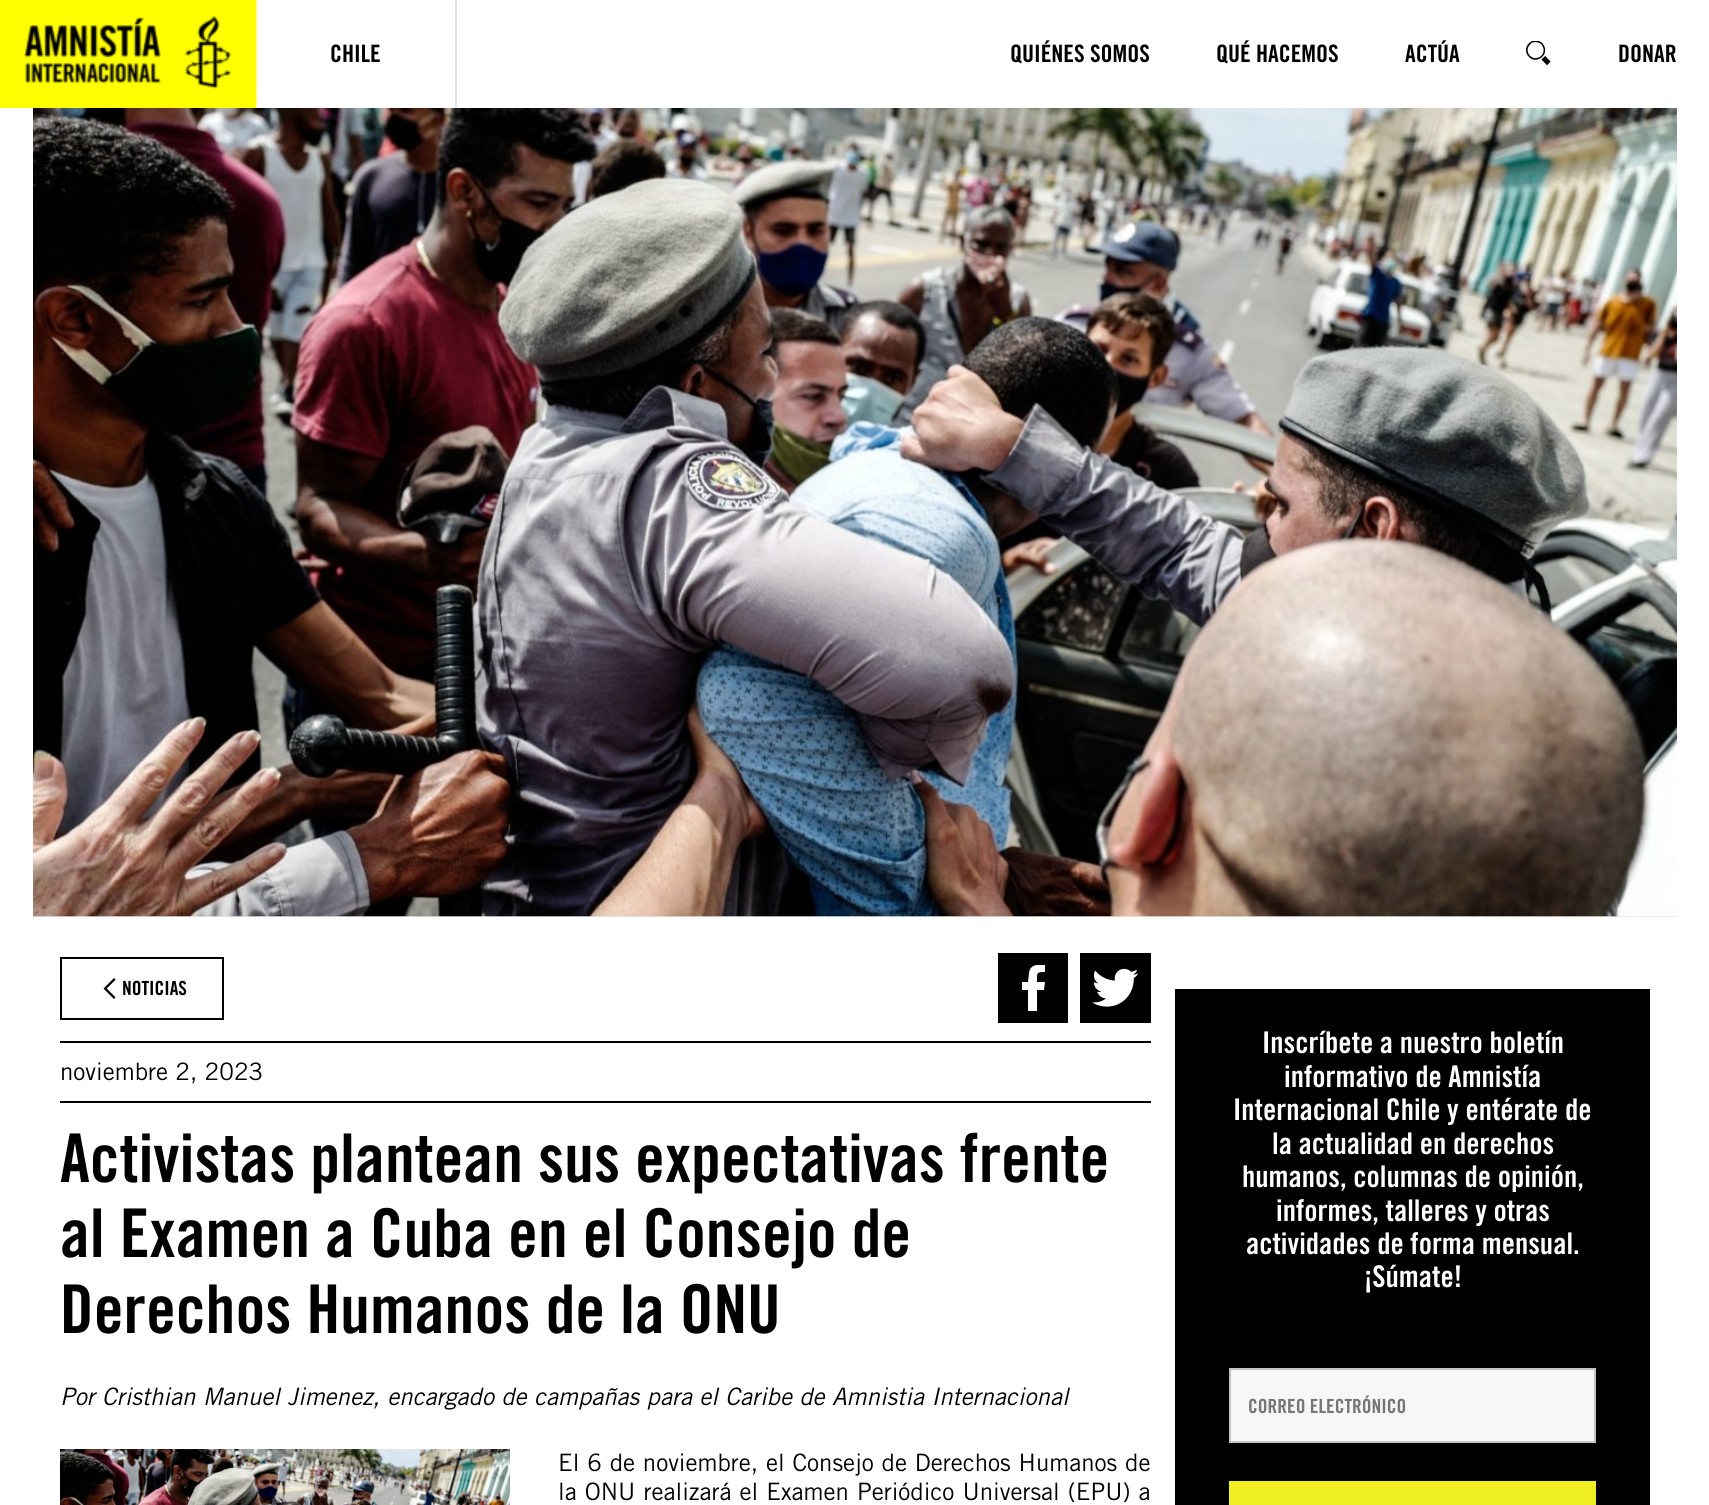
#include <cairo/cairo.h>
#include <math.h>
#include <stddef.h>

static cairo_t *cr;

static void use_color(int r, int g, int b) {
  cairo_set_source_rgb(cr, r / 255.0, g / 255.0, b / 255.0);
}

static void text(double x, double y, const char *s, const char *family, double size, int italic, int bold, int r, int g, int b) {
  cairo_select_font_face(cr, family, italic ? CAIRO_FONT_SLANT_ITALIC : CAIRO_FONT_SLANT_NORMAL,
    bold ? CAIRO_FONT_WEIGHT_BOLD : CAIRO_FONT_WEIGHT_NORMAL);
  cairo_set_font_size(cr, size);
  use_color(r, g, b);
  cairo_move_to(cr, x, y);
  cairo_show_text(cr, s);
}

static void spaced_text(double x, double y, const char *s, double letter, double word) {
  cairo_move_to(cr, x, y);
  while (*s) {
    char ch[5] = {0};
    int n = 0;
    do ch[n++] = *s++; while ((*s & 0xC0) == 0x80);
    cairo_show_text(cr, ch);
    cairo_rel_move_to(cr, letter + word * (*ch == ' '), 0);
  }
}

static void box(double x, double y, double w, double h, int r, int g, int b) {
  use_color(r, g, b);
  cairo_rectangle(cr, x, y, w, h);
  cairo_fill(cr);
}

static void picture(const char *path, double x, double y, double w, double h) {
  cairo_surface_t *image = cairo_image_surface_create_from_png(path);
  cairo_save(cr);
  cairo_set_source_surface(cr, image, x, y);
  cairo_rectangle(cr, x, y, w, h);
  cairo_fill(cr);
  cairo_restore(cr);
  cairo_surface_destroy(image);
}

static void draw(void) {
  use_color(255, 255, 255);
  cairo_paint(cr);
  picture("img_01.png", 0, 0, 257, 108);
  box(455, 0, 2, 108, 228, 228, 228);
  picture("img_02.png", 1526, 41, 25, 25);
  box(33, 916, 1644, 1, 228, 228, 228);
  picture("img_03.png", 33, 108, 1644, 809);
  cairo_rectangle(cr, 61, 958, 162, 61);
  use_color(0, 0, 0);
  cairo_stroke(cr);
  picture("img_04.png", 103, 978, 13, 21);
  box(998, 953, 70, 70, 0, 0, 0);
  cairo_save(cr);
  cairo_rectangle(cr, 1022, 965, 24, 46);
  cairo_clip(cr);
  use_color(255, 255, 255);
  cairo_new_path(cr);
  cairo_move_to(cr, 1028, 1011);
  cairo_line_to(cr, 1028, 990);
  cairo_line_to(cr, 1022, 990);
  cairo_line_to(cr, 1022, 982);
  cairo_line_to(cr, 1028, 982);
  cairo_line_to(cr, 1029, 973);
  cairo_curve_to(cr, 1030, 964, 1039, 964, 1045, 965);
  cairo_line_to(cr, 1045, 972);
  cairo_curve_to(cr, 1036, 972, 1037, 973, 1037, 982);
  cairo_line_to(cr, 1045, 982);
  cairo_line_to(cr, 1044, 990);
  cairo_line_to(cr, 1037, 990);
  cairo_line_to(cr, 1037, 1011);
  cairo_fill(cr);
  cairo_restore(cr);
  box(1080, 953, 71, 70, 0, 0, 0);
  picture("img_05.png", 1092, 968, 47, 39);
  box(60, 1041, 1091, 2, 0, 0, 0);
  box(60, 1101, 1091, 2, 0, 0, 0);
  picture("img_06.png", 60, 1449, 450, 56);
  box(1175, 989, 475, 516, 0, 0, 0);
  use_color(247, 247, 247);
  cairo_rectangle(cr, 1230, 1369, 365, 73);
  cairo_fill_preserve(cr);
  use_color(196, 196, 196);
  cairo_stroke(cr);
  box(1229, 1481, 367, 24, 238, 238, 34);
  text(330, 62, "CHILE", "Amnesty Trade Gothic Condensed", 24, 0, 1, 0, 0, 0);
  text(1010, 62, "QUIÉNES SOMOS", "Amnesty Trade Gothic Condensed", 24, 0, 1, 0, 0, 0);
  text(1216, 62, "QUÉ HACEMOS", "Amnesty Trade Gothic Condensed", 24, 0, 1, 0, 0, 0);
  text(1405, 62, "ACTÚA", "Amnesty Trade Gothic Condensed", 24, 0, 1, 0, 0, 0);
  text(1618, 62, "DONAR", "Amnesty Trade Gothic Condensed", 24, 0, 1, 0, 0, 0);
  text(122, 995, "NOTICIAS", "Amnesty Trade Gothic Condensed", 19.5, 0, 1, 0, 0, 0);
  text(60, 1080, "noviembre 2, 2023", "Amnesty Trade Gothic", 24, 0, 0, 0, 0, 0);
  text(60, 1182, "Activistas plantean sus expectativas frente", "Amnesty Trade Gothic Condensed", 67.25, 0, 1, 0, 0, 0);
  text(60, 1257, "al Examen a Cuba en el Consejo de", "Amnesty Trade Gothic Condensed", 67.25, 0, 1, 0, 0, 0);
  text(60, 1333, "Derechos Humanos de la ONU", "Amnesty Trade Gothic Condensed", 67.25, 0, 1, 0, 0, 0);
  text(60, 1405, "Por Cristhian Manuel Jimenez, encargado de campañas para el Caribe de Amnistia Internacional", "Amnesty Trade Gothic", 24, 1, 0, 0, 0, 0);
  cairo_select_font_face(cr, "Amnesty Trade Gothic", CAIRO_FONT_SLANT_NORMAL, CAIRO_FONT_WEIGHT_NORMAL);
  spaced_text(558, 1471, "El 6 de noviembre, el Consejo de Derechos Humanos de", 0, 0.5);
  spaced_text(558, 1500, "la ONU realizará el Examen Periódico Universal (EPU) a", 0, 0.75);
  text(1262, 1053, "Inscríbete a nuestro boletín", "Amnesty Trade Gothic Condensed", 29.9, 0, 1, 255, 255, 255);
  text(1284, 1087, "informativo de Amnistía", "Amnesty Trade Gothic Condensed", 29.9, 0, 1, 255, 255, 255);
  text(1233, 1120, "Internacional Chile y entérate de", "Amnesty Trade Gothic Condensed", 29.9, 0, 1, 255, 255, 255);
  text(1272, 1154, "la actualidad en derechos", "Amnesty Trade Gothic Condensed", 29.9, 0, 1, 255, 255, 255);
  text(1242, 1187, "humanos, columnas de opinión,", "Amnesty Trade Gothic Condensed", 29.9, 0, 1, 255, 255, 255);
  text(1276, 1221, "informes, talleres y otras", "Amnesty Trade Gothic Condensed", 29.9, 0, 1, 255, 255, 255);
  text(1246, 1254, "actividades de forma mensual.", "Amnesty Trade Gothic Condensed", 29.9, 0, 1, 255, 255, 255);
  text(1364, 1287, "¡Súmate!", "Amnesty Trade Gothic Condensed", 29.9, 0, 1, 255, 255, 255);
  text(1248, 1413, "CORREO ELECTRÓNICO", "Amnesty Trade Gothic Condensed", 19.5, 0, 1, 118, 118, 118);
}

int main(void) {
  cairo_surface_t *surface = cairo_image_surface_create(CAIRO_FORMAT_RGB24, 1709, 1505);
  cr = cairo_create(surface);
  cairo_font_options_t *options = cairo_font_options_create();
  cairo_font_options_set_hint_metrics(options, CAIRO_HINT_METRICS_OFF);
  cairo_font_options_set_hint_style(options, CAIRO_HINT_STYLE_NONE);
  cairo_set_font_options(cr, options);
  cairo_set_miter_limit(cr, 4);
  draw();
  cairo_surface_write_to_png(surface, "out.png");
  cairo_font_options_destroy(options);
  cairo_destroy(cr);
  cairo_surface_destroy(surface);
  return 0;
}
